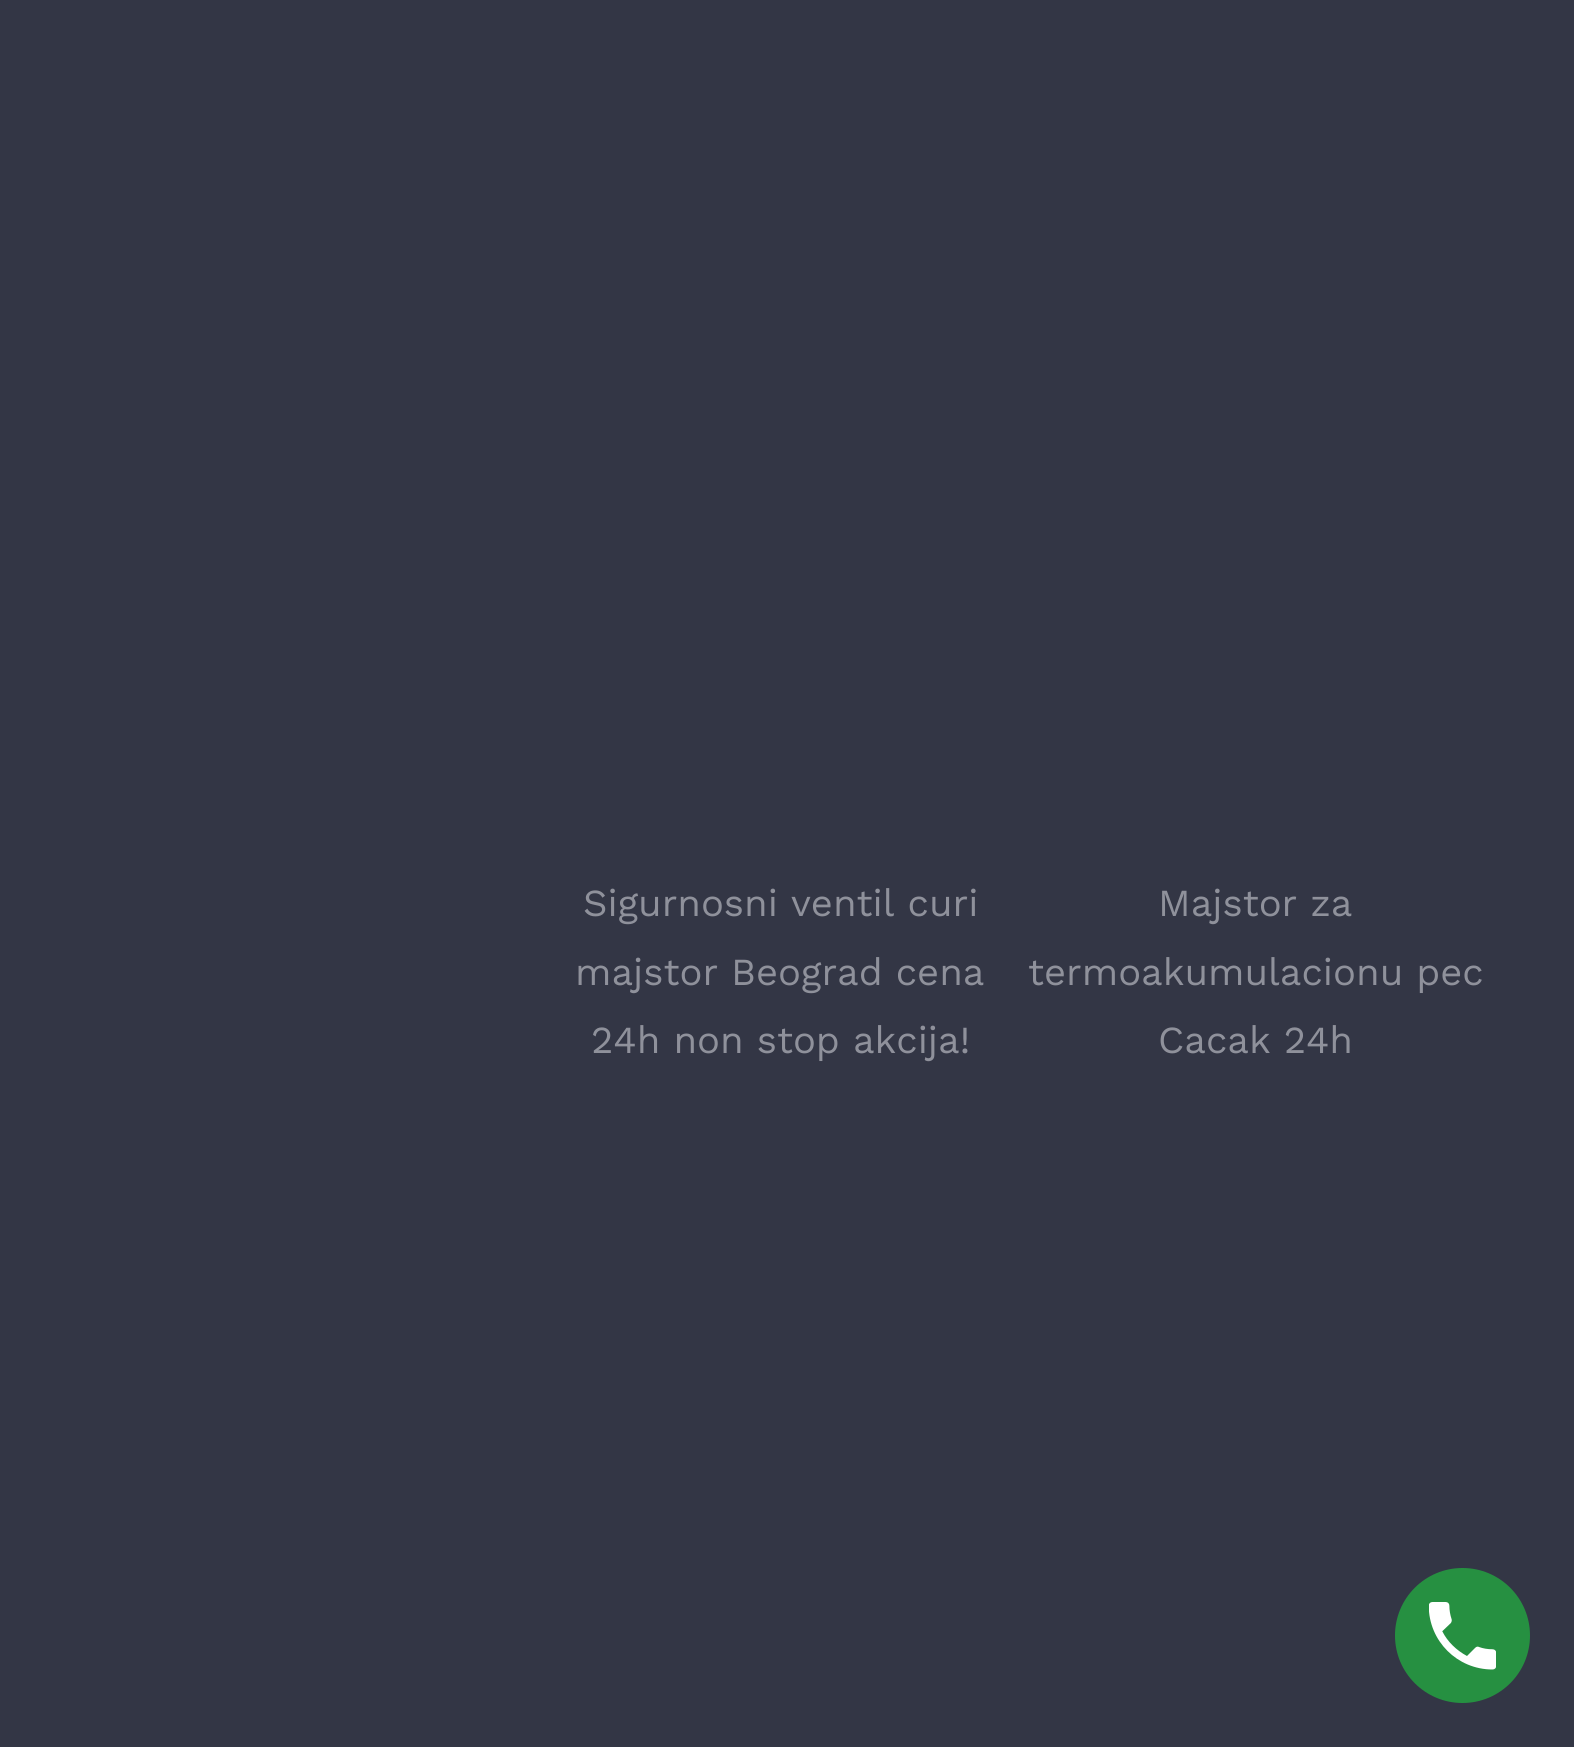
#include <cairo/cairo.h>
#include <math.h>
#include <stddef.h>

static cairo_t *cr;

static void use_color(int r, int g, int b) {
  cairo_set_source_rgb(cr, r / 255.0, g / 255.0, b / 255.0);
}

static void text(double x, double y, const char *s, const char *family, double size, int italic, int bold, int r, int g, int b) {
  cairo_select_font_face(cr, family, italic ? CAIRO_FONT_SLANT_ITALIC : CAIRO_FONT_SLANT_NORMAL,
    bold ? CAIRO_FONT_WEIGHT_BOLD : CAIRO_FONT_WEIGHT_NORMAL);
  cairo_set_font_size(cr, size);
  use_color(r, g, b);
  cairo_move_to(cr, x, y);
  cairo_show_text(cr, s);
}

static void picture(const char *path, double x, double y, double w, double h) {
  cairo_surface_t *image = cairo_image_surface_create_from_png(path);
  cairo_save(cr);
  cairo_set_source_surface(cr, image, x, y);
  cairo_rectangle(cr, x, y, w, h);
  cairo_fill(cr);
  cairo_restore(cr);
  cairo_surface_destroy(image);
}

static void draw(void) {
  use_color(51, 54, 69);
  cairo_paint(cr);
  use_color(38, 144, 65);
  cairo_arc(cr, 1462.5, 1635.5, 67.5, 0, 2 * M_PI);
  cairo_fill(cr);
  picture("img_01.png", 1429, 1602, 67, 68);
  text(583, 916, "Sigurnosni ventil curi", "Work Sans", 38.25, 0, 0, 143, 145, 155);
  text(575, 985, "majstor Beograd cena", "Work Sans", 38.25, 0, 0, 143, 145, 155);
  text(591, 1053, "24h non stop akcija!", "Work Sans", 38.25, 0, 0, 143, 145, 155);
  text(1158, 916, "Majstor za", "Work Sans", 38.25, 0, 0, 143, 145, 155);
  text(1028, 985, "termoakumulacionu pec", "Work Sans", 38.25, 0, 0, 143, 145, 155);
  text(1158, 1053, "Cacak 24h", "Work Sans", 38.25, 0, 0, 143, 145, 155);
}

int main(void) {
  cairo_surface_t *surface = cairo_image_surface_create(CAIRO_FORMAT_RGB24, 1574, 1747);
  cr = cairo_create(surface);
  cairo_font_options_t *options = cairo_font_options_create();
  cairo_font_options_set_hint_metrics(options, CAIRO_HINT_METRICS_OFF);
  cairo_font_options_set_hint_style(options, CAIRO_HINT_STYLE_NONE);
  cairo_set_font_options(cr, options);
  cairo_set_miter_limit(cr, 4);
  draw();
  cairo_surface_write_to_png(surface, "out.png");
  cairo_font_options_destroy(options);
  cairo_destroy(cr);
  cairo_surface_destroy(surface);
  return 0;
}
